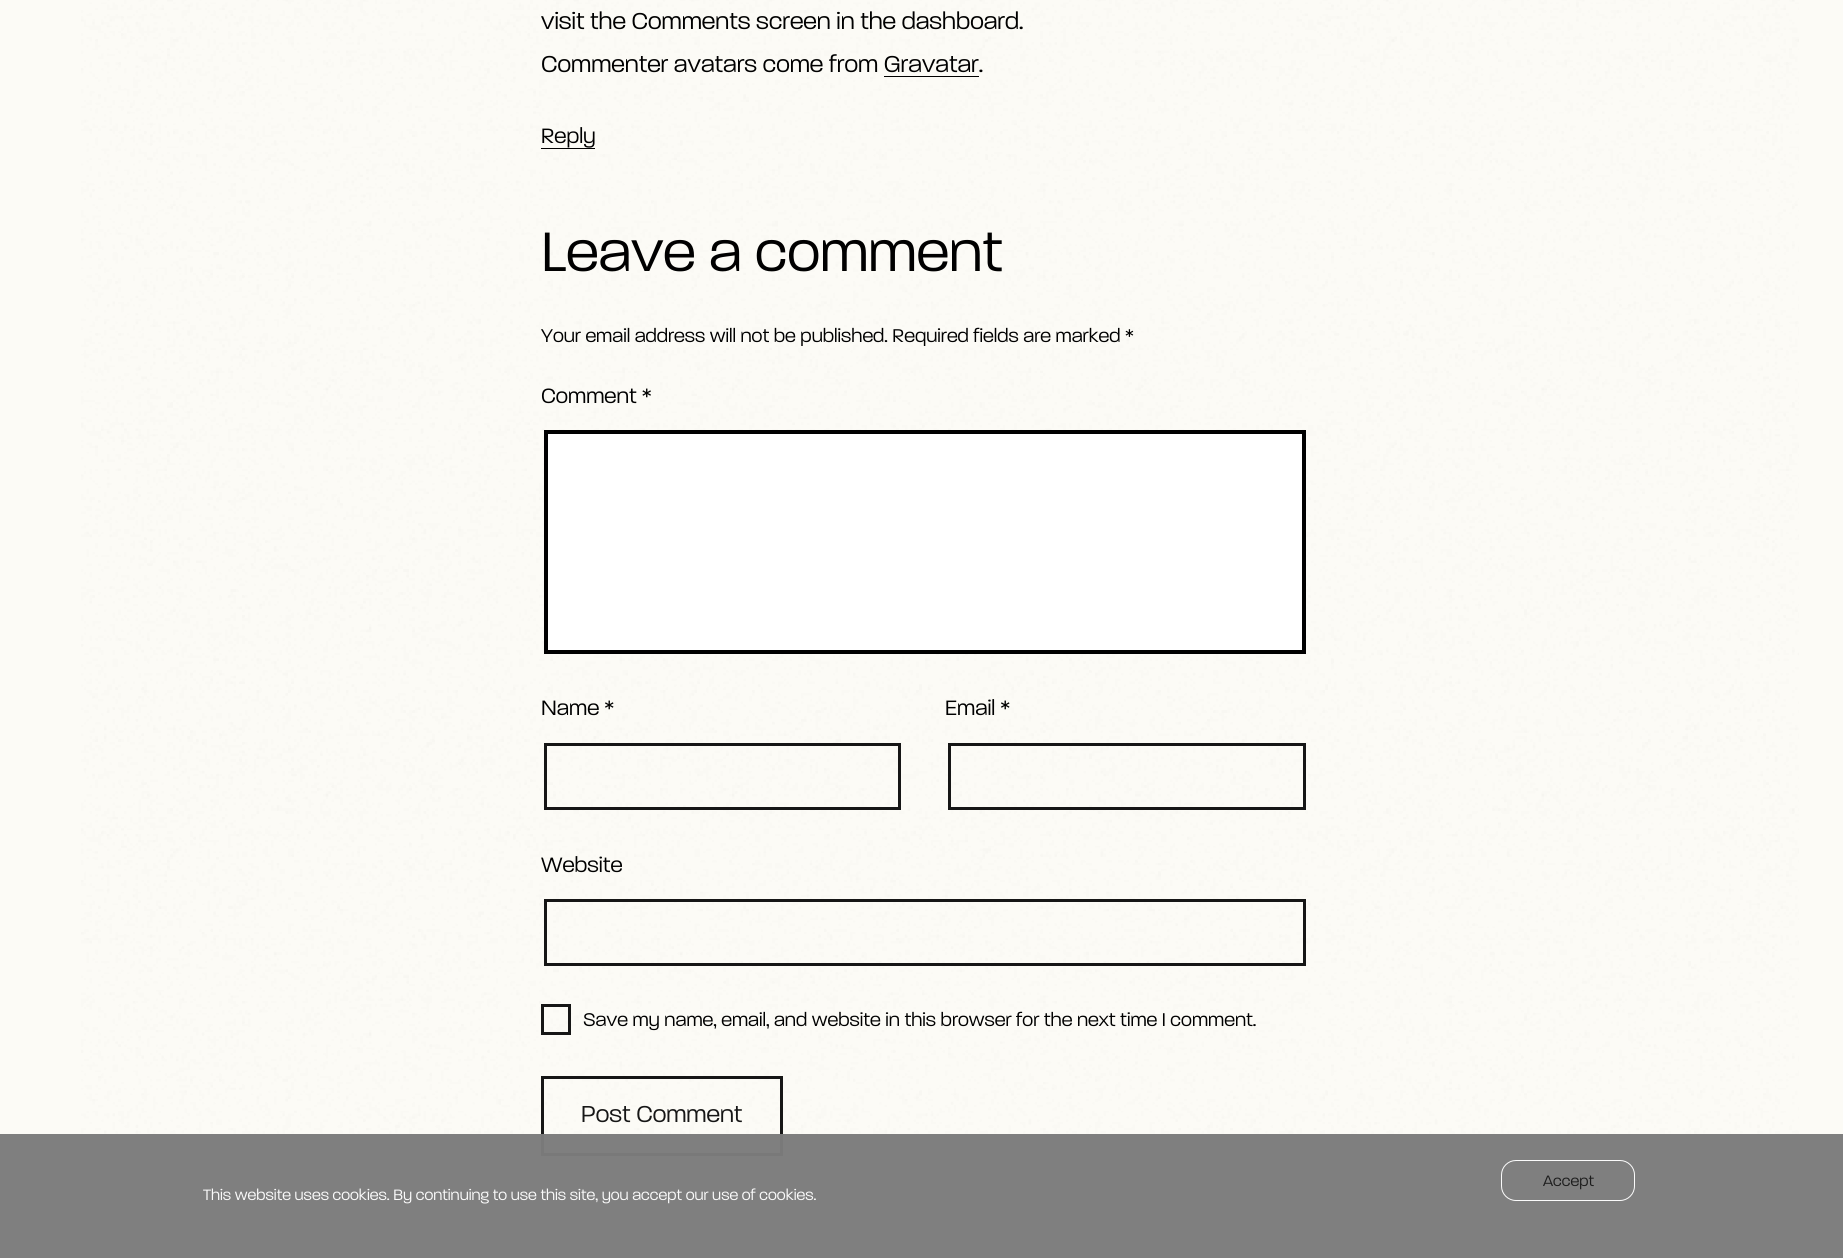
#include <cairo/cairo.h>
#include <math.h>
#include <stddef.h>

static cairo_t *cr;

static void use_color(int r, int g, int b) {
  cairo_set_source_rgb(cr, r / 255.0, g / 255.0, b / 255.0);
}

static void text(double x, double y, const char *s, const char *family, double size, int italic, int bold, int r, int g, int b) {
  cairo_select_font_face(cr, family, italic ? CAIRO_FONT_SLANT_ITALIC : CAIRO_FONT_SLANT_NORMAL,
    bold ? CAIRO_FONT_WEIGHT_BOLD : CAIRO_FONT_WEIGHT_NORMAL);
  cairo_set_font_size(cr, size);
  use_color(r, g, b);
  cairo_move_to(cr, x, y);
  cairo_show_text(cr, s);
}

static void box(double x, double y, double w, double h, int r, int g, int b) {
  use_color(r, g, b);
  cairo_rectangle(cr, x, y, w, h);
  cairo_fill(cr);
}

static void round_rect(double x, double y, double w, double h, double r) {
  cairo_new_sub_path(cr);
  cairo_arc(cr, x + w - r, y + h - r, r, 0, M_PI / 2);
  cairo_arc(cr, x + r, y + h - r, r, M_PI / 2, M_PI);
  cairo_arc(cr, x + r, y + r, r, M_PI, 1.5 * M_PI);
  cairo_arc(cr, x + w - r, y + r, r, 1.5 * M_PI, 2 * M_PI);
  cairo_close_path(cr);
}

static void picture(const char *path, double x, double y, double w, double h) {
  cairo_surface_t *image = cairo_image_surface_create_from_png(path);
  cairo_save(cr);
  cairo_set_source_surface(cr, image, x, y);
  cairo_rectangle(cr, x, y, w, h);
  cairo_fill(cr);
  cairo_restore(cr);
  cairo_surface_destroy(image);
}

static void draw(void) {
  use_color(252, 251, 246);
  cairo_paint(cr);
  picture("img_01.png", 81, 0, 1718, 1236);
  box(884, 76, 95, 1, 0, 0, 0);
  box(541, 148, 54, 1, 0, 0, 0);
  use_color(255, 255, 255);
  cairo_rectangle(cr, 546, 432, 758, 220);
  cairo_fill_preserve(cr);
  use_color(0, 0, 0);
  cairo_set_line_width(cr, 4);
  cairo_stroke(cr);
  cairo_rectangle(cr, 545.5, 744.5, 354, 64);
  use_color(22, 22, 22);
  cairo_set_line_width(cr, 3);
  cairo_stroke(cr);
  cairo_rectangle(cr, 949.5, 744.5, 355, 64);
  cairo_stroke(cr);
  cairo_rectangle(cr, 545.5, 900.5, 759, 64);
  cairo_stroke(cr);
  cairo_rectangle(cr, 542.5, 1005.5, 27, 28);
  cairo_stroke(cr);
  cairo_rectangle(cr, 542.5, 1077.5, 239, 77);
  cairo_stroke(cr);
  cairo_set_source_rgba(cr, 0.486, 0.486, 0.486, 0.97);
  cairo_rectangle(cr, 0, 1134, 1843, 124);
  cairo_fill(cr);
  round_rect(1501.5, 1160.5, 133, 40, 14.5);
  use_color(251, 251, 251);
  cairo_set_line_width(cr, 1);
  cairo_stroke(cr);
  text(541, 29, "visit the Comments screen in the dashboard.", "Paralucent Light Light", 25, 0, 0, 0, 0, 0);
  text(541, 72, "Commenter avatars come from Gravatar.", "Paralucent Light Light", 25, 0, 0, 0, 0, 0);
  text(541, 143, "Reply", "Paralucent Light Light", 22.5, 0, 0, 0, 0, 0);
  text(541, 271, "Leave a comment", "Paralucent Light Light", 60, 0, 0, 0, 0, 0);
  text(541, 342, "Your email address will not be published. Required fields are marked *", "Paralucent Light Light", 20, 0, 0, 0, 0, 0);
  text(541, 403, "Comment *", "Paralucent Light Light", 22.5, 0, 0, 0, 0, 0);
  text(541, 715, "Name *", "Paralucent Light Light", 22.5, 0, 0, 0, 0, 0);
  text(945, 715, "Email *", "Paralucent Light Light", 22.5, 0, 0, 0, 0, 0);
  text(541, 872, "Website", "Paralucent Light Light", 22.5, 0, 0, 0, 0, 0);
  text(583, 1026, "Save my name, email, and website in this browser for the next time I comment.", "Paralucent Light Light", 20, 0, 0, 0, 0, 0);
  text(581, 1122, "Post Comment", "Paralucent Light Light", 25, 0, 0, 22, 22, 22);
  text(1543, 1186, "Accept", "Paralucent Light Light", 16.25, 0, 0, 29, 29, 29);
  text(203, 1200, "This website uses cookies. By continuing to use this site, you accept our use of cookies.", "Paralucent Light Light", 16.25, 0, 0, 251, 251, 251);
}

int main(void) {
  cairo_surface_t *surface = cairo_image_surface_create(CAIRO_FORMAT_RGB24, 1843, 1258);
  cr = cairo_create(surface);
  cairo_font_options_t *options = cairo_font_options_create();
  cairo_font_options_set_hint_metrics(options, CAIRO_HINT_METRICS_OFF);
  cairo_font_options_set_hint_style(options, CAIRO_HINT_STYLE_NONE);
  cairo_set_font_options(cr, options);
  cairo_set_miter_limit(cr, 4);
  draw();
  cairo_surface_write_to_png(surface, "out.png");
  cairo_font_options_destroy(options);
  cairo_destroy(cr);
  cairo_surface_destroy(surface);
  return 0;
}
